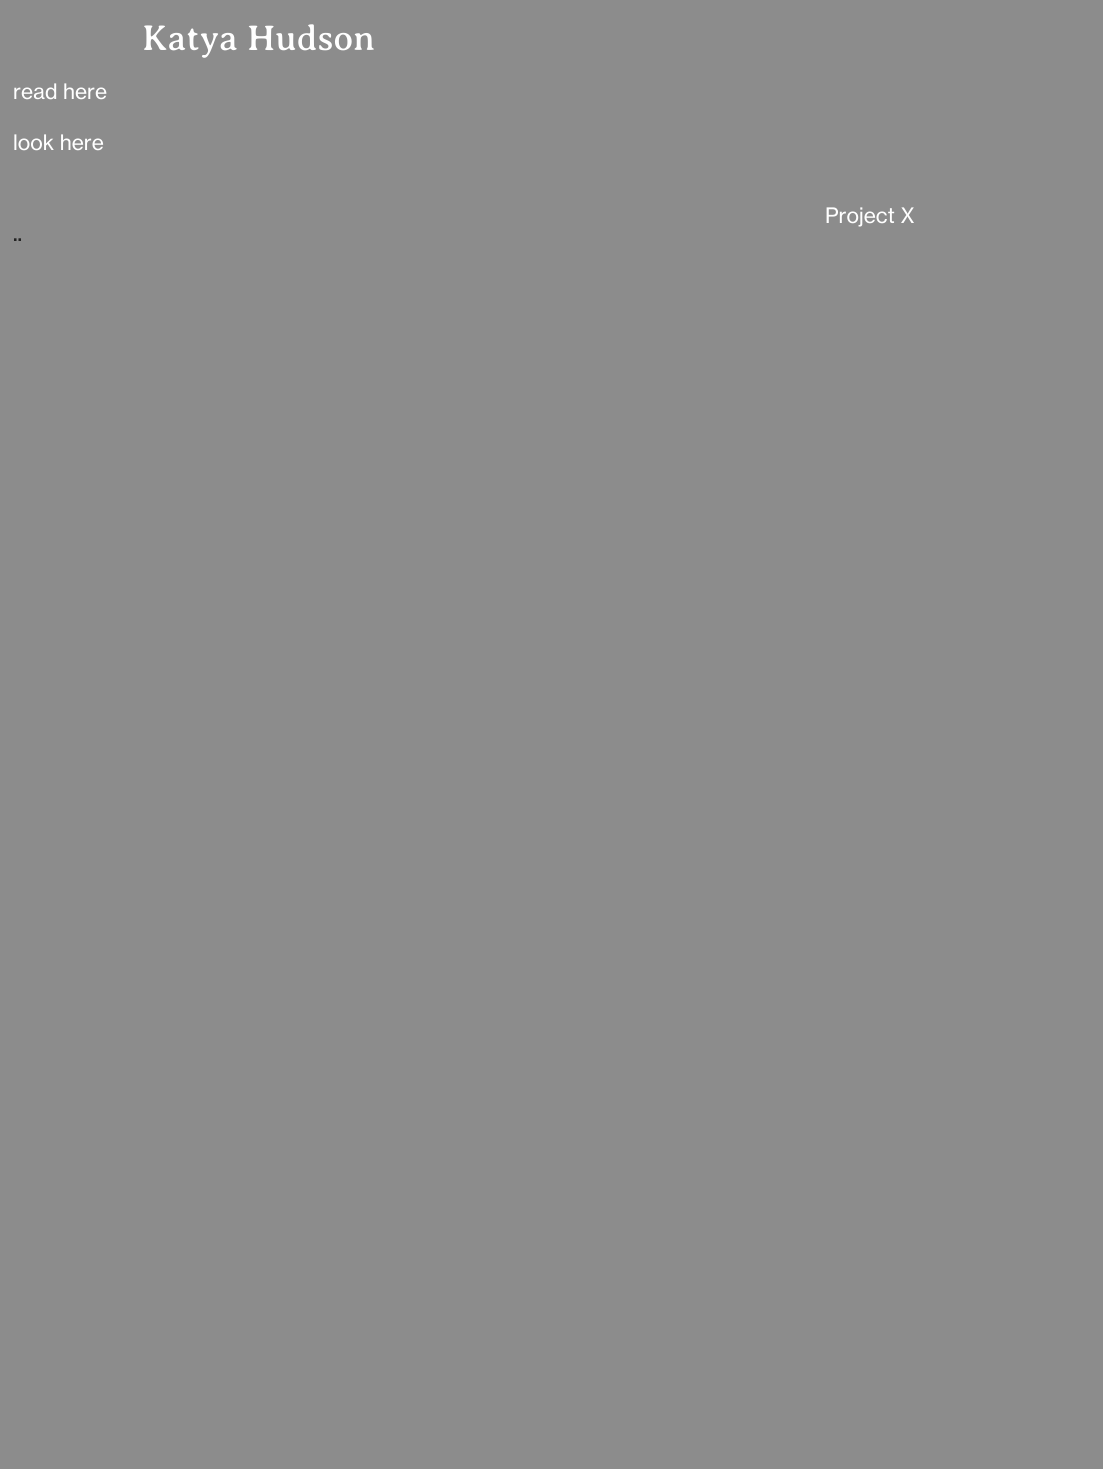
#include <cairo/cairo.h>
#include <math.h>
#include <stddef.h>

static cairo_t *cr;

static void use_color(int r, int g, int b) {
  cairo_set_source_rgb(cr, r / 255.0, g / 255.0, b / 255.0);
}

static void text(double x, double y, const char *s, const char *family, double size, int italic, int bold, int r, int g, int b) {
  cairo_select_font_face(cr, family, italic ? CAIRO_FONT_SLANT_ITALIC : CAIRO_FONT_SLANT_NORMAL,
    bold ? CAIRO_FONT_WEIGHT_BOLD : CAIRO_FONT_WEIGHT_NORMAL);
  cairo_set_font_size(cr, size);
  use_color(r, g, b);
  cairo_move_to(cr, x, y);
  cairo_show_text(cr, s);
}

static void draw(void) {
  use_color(140, 140, 140);
  cairo_paint(cr);
  text(142, 50, "Katya Hudson", "Averia Serif Libre", 36, 0, 0, 255, 255, 255);
  text(13, 99, "read here", "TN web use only", 21, 0, 0, 255, 255, 255);
  text(13, 150, "look here", "TN web use only", 21, 0, 0, 255, 255, 255);
  text(13, 241, "..", "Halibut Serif", 30, 0, 0, 35, 35, 35);
  text(825, 223, "Project X", "TN web use only", 21, 0, 0, 255, 255, 255);
}

int main(void) {
  cairo_surface_t *surface = cairo_image_surface_create(CAIRO_FORMAT_RGB24, 1103, 1469);
  cr = cairo_create(surface);
  cairo_font_options_t *options = cairo_font_options_create();
  cairo_font_options_set_hint_metrics(options, CAIRO_HINT_METRICS_OFF);
  cairo_font_options_set_hint_style(options, CAIRO_HINT_STYLE_NONE);
  cairo_set_font_options(cr, options);
  cairo_set_miter_limit(cr, 4);
  draw();
  cairo_surface_write_to_png(surface, "out.png");
  cairo_font_options_destroy(options);
  cairo_destroy(cr);
  cairo_surface_destroy(surface);
  return 0;
}
